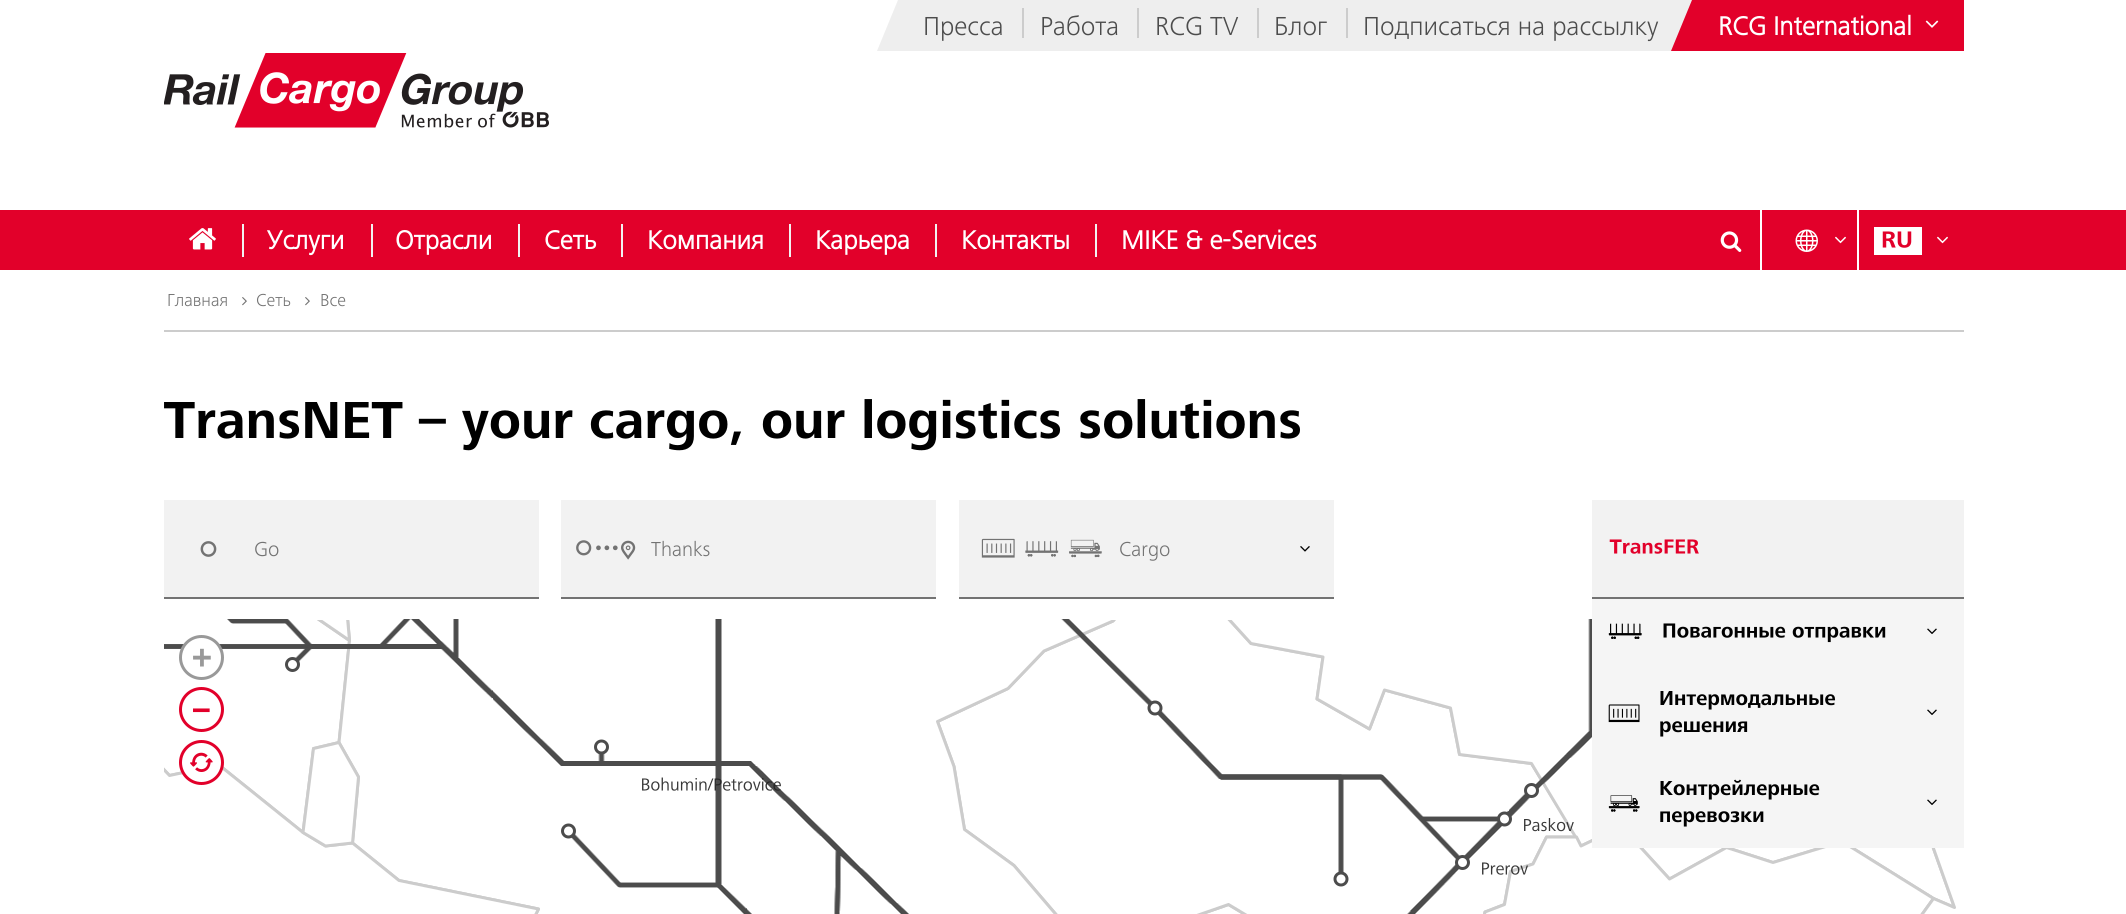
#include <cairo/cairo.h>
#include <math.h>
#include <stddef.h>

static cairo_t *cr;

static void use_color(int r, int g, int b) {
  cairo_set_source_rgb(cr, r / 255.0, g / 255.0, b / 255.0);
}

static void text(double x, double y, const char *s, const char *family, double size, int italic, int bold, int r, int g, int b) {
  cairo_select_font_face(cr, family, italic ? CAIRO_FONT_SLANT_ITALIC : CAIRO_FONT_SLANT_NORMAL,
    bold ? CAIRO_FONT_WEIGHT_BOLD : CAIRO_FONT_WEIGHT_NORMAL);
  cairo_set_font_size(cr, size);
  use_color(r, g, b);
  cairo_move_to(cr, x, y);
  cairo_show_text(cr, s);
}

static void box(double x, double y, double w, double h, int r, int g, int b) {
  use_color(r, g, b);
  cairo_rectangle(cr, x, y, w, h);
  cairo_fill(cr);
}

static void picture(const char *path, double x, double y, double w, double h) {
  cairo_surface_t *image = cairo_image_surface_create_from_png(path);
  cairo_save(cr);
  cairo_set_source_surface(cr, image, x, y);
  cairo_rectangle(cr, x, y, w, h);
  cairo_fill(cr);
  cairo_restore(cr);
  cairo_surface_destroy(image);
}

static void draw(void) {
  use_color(255, 255, 255);
  cairo_paint(cr);
  use_color(238, 238, 238);
  cairo_new_path(cr);
  cairo_move_to(cr, 898, 0);
  cairo_line_to(cr, 943, 0);
  cairo_line_to(cr, 922, 51);
  cairo_line_to(cr, 877, 51);
  cairo_close_path(cr);
  cairo_fill(cr);
  box(922, 0, 770, 51, 238, 238, 238);
  box(1022, 8, 2, 30, 204, 204, 204);
  box(1137, 8, 2, 30, 204, 204, 204);
  box(1257, 8, 2, 30, 204, 204, 204);
  box(1346, 8, 2, 30, 204, 204, 204);
  box(1716, 0, 248, 51, 226, 0, 42);
  cairo_new_path(cr);
  cairo_move_to(cr, 1692, 0);
  cairo_line_to(cr, 1737, 0);
  cairo_line_to(cr, 1716, 51);
  cairo_line_to(cr, 1671, 51);
  cairo_close_path(cr);
  cairo_fill(cr);
  picture("img_01.png", 1925, 20, 14, 8);
  picture("img_02.png", 164, 53, 385, 75);
  box(0, 210, 2126, 60, 226, 0, 42);
  picture("img_03.png", 189, 228, 27, 22);
  box(242, 224, 2, 33, 242, 242, 242);
  box(371, 224, 2, 33, 242, 242, 242);
  box(518, 224, 2, 33, 242, 242, 242);
  box(621, 224, 2, 33, 242, 242, 242);
  box(789, 224, 2, 33, 242, 242, 242);
  box(935, 224, 2, 33, 242, 242, 242);
  box(1095, 224, 2, 33, 242, 242, 242);
  box(1760, 210, 2, 60, 255, 255, 255);
  picture("img_04.png", 1720, 231, 22, 21);
  box(1857, 210, 2, 60, 255, 255, 255);
  picture("img_05.png", 1795, 229, 23, 23);
  picture("img_06.png", 1835, 236, 11, 8);
  box(1874, 227, 48, 28, 255, 255, 255);
  picture("img_07.png", 1882, 231, 30, 17);
  picture("img_06.png", 1937, 236, 11, 8);
  box(164, 330, 1800, 2, 204, 204, 204);
  picture("img_08.png", 242, 297, 5, 9);
  picture("img_08.png", 305, 297, 5, 9);
  picture("img_09.png", 164, 399, 1136, 52);
  use_color(115, 115, 115);
  cairo_new_path(cr);
  cairo_move_to(cr, 164, 597);
  cairo_line_to(cr, 164, 599);
  cairo_line_to(cr, 539, 599);
  cairo_line_to(cr, 539, 501);
  cairo_line_to(cr, 538, 501);
  cairo_line_to(cr, 538, 597);
  cairo_close_path(cr);
  cairo_fill(cr);
  box(164, 500, 375, 97, 242, 242, 242);
  picture("img_10.png", 200, 541, 17, 16);
  box(561, 500, 375, 97, 242, 242, 242);
  picture("img_11.png", 576, 540, 60, 20);
  box(561, 597, 375, 2, 115, 115, 115);
  cairo_new_path(cr);
  cairo_move_to(cr, 959, 597);
  cairo_line_to(cr, 959, 599);
  cairo_line_to(cr, 1334, 599);
  cairo_line_to(cr, 1334, 501);
  cairo_line_to(cr, 1334, 597);
  cairo_close_path(cr);
  cairo_fill(cr);
  box(959, 500, 375, 97, 242, 242, 242);
  picture("img_12.png", 981, 538, 34, 20);
  picture("img_13.png", 1025, 541, 34, 16);
  picture("img_14.png", 1069, 539, 33, 19);
  picture("img_15.png", 1300, 546, 10, 6);
  use_color(115, 115, 115);
  cairo_new_path(cr);
  cairo_move_to(cr, 1592, 597);
  cairo_line_to(cr, 1592, 599);
  cairo_line_to(cr, 1964, 599);
  cairo_line_to(cr, 1964, 501);
  cairo_line_to(cr, 1964, 597);
  cairo_close_path(cr);
  cairo_fill(cr);
  box(1592, 500, 372, 97, 242, 242, 242);
  picture("img_16.png", 1609, 539, 90, 15);
  picture("img_27.png", 164, 620, 1800, 294);
  box(1592, 599, 372, 249, 245, 245, 245);
  picture("img_17.png", 1608, 623, 34, 16);
  picture("img_18.png", 1663, 623, 223, 20);
  picture("img_19.png", 1927, 628, 10, 6);
  picture("img_20.png", 1660, 691, 176, 19);
  picture("img_21.png", 1608, 704, 32, 19);
  picture("img_19.png", 1927, 709, 10, 6);
  picture("img_22.png", 1660, 721, 88, 16);
  picture("img_23.png", 1660, 779, 160, 21);
  picture("img_24.png", 1608, 795, 32, 17);
  picture("img_19.png", 1927, 799, 10, 6);
  picture("img_25.png", 1660, 811, 104, 16);
  picture("img_26.png", 164, 619, 1428, 295);
  use_color(255, 255, 255);
  cairo_arc(cr, 292.5, 664.5, 6, 0, 2 * M_PI);
  cairo_fill_preserve(cr);
  use_color(76, 76, 76);
  cairo_set_line_width(cr, 3);
  cairo_stroke(cr);
  use_color(255, 255, 255);
  cairo_arc(cr, 1155, 708, 6, 0, 2 * M_PI);
  cairo_fill_preserve(cr);
  use_color(76, 76, 76);
  cairo_stroke(cr);
  use_color(255, 255, 255);
  cairo_arc(cr, 601.5, 747, 6, 0, 2 * M_PI);
  cairo_fill_preserve(cr);
  use_color(76, 76, 76);
  cairo_stroke(cr);
  use_color(255, 255, 255);
  cairo_arc(cr, 1531.5, 790.5, 6, 0, 2 * M_PI);
  cairo_fill_preserve(cr);
  use_color(76, 76, 76);
  cairo_stroke(cr);
  use_color(255, 255, 255);
  cairo_arc(cr, 1504.5, 819, 6, 0, 2 * M_PI);
  cairo_fill_preserve(cr);
  use_color(76, 76, 76);
  cairo_stroke(cr);
  use_color(255, 255, 255);
  cairo_arc(cr, 568.5, 831, 6, 0, 2 * M_PI);
  cairo_fill_preserve(cr);
  use_color(76, 76, 76);
  cairo_stroke(cr);
  use_color(255, 255, 255);
  cairo_arc(cr, 1462.5, 862.5, 6, 0, 2 * M_PI);
  cairo_fill_preserve(cr);
  use_color(76, 76, 76);
  cairo_stroke(cr);
  use_color(255, 255, 255);
  cairo_arc(cr, 1341, 879, 6, 0, 2 * M_PI);
  cairo_fill_preserve(cr);
  use_color(76, 76, 76);
  cairo_stroke(cr);
  picture("img_28.png", 642, 777, 139, 14);
  picture("img_29.png", 1524, 818, 50, 14);
  picture("img_30.png", 1482, 862, 46, 13);
  use_color(255, 255, 255);
  cairo_arc(cr, 201.5, 657.5, 21, 0, 2 * M_PI);
  cairo_fill_preserve(cr);
  use_color(153, 153, 153);
  cairo_stroke(cr);
  cairo_arc(cr, 201.5, 709.5, 21, 0, 2 * M_PI);
  use_color(226, 0, 42);
  cairo_stroke(cr);
  use_color(255, 255, 255);
  cairo_arc(cr, 201.5, 762.5, 21, 0, 2 * M_PI);
  cairo_fill_preserve(cr);
  use_color(226, 0, 42);
  cairo_stroke(cr);
  picture("img_31.png", 190, 752, 23, 20);
  text(923, 35, "Пресса", "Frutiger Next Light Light", 27, 0, 0, 76, 76, 76);
  text(1040, 35, "Работа", "Frutiger Next Light Light", 27, 0, 0, 76, 76, 76);
  text(1155, 35, "RCG TV", "Frutiger Next Light Light", 27, 0, 0, 76, 76, 76);
  text(1274, 35, "Блог", "Frutiger Next Light Light", 27, 0, 0, 76, 76, 76);
  text(1363, 35, "Подписаться на рассылку", "Frutiger Next Light Light", 27, 0, 0, 76, 76, 76);
  text(1718, 35, "RCG International", "Frutiger Next Light", 27, 0, 1, 255, 255, 255);
  text(267, 249, "Услуги", "Frutiger Next Light", 27, 0, 1, 255, 255, 255);
  text(395, 249, "Отрасли", "Frutiger Next Light", 27, 0, 1, 255, 255, 255);
  text(544, 249, "Сеть", "Frutiger Next Light", 27, 0, 1, 255, 255, 255);
  text(647, 249, "Компания", "Frutiger Next Light", 27, 0, 1, 255, 255, 255);
  text(815, 249, "Карьера", "Frutiger Next Light", 27, 0, 1, 255, 255, 255);
  text(961, 249, "Контакты", "Frutiger Next Light", 27, 0, 1, 255, 255, 255);
  text(1121, 249, "MIKE & e-Services", "Frutiger Next Light", 27, 0, 1, 255, 255, 255);
  text(167, 306, "Главная", "Frutiger Next Light Light", 18, 0, 0, 115, 115, 115);
  text(256, 306, "Сеть", "Frutiger Next Light Light", 18, 0, 0, 115, 115, 115);
  text(320, 306, "Все", "Frutiger Next Light Light", 18, 0, 0, 115, 115, 115);
  text(254, 556, "Go", "Frutiger Next Light Light", 21, 0, 0, 115, 115, 115);
  text(651, 556, "Thanks", "Frutiger Next Light Light", 21, 0, 0, 115, 115, 115);
  text(1119, 556, "Cargo", "Frutiger Next Light Light", 21, 0, 0, 115, 115, 115);
  text(192, 668, "+", "DejaVu Sans Mono", 33, 0, 1, 153, 153, 153);
  text(192, 720, "−", "DejaVu Sans Mono", 31, 0, 1, 226, 0, 42);
}

int main(void) {
  cairo_surface_t *surface = cairo_image_surface_create(CAIRO_FORMAT_RGB24, 2126, 914);
  cr = cairo_create(surface);
  cairo_font_options_t *options = cairo_font_options_create();
  cairo_font_options_set_hint_metrics(options, CAIRO_HINT_METRICS_OFF);
  cairo_font_options_set_hint_style(options, CAIRO_HINT_STYLE_NONE);
  cairo_set_font_options(cr, options);
  cairo_set_miter_limit(cr, 4);
  draw();
  cairo_surface_write_to_png(surface, "out.png");
  cairo_font_options_destroy(options);
  cairo_destroy(cr);
  cairo_surface_destroy(surface);
  return 0;
}
